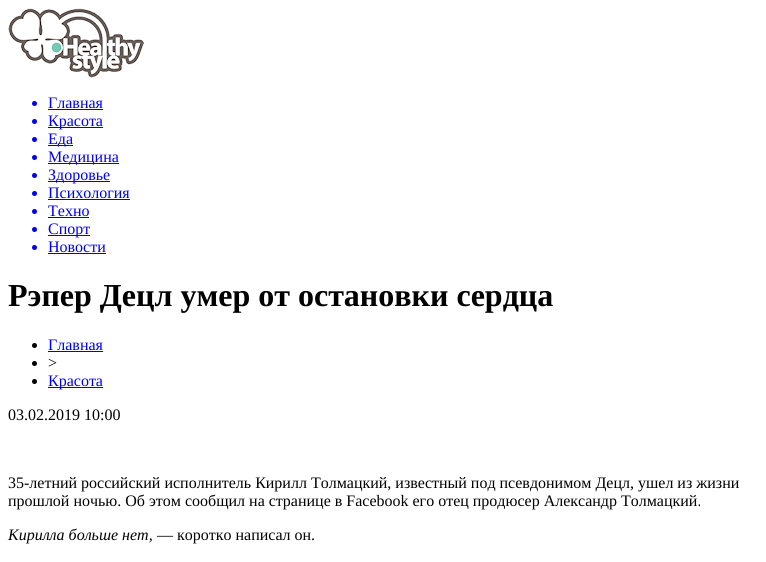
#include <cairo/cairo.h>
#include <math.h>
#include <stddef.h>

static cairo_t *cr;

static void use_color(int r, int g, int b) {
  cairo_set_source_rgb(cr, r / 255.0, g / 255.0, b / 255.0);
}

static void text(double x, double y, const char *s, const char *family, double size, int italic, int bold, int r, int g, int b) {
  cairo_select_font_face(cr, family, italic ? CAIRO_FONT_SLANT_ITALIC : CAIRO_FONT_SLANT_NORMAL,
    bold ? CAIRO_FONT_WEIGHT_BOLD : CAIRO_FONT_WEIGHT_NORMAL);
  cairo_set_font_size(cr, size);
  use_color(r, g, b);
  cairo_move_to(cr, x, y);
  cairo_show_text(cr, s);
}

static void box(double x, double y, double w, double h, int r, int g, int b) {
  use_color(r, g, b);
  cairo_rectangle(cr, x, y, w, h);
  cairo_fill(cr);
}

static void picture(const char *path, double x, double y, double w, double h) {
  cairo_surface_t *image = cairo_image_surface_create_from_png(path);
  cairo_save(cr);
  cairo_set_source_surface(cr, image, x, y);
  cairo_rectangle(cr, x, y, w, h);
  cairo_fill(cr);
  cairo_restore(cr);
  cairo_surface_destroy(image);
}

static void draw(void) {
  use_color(255, 255, 255);
  cairo_paint(cr);
  picture("img_01.png", 8, 8, 136, 70);
  use_color(0, 0, 238);
  cairo_arc(cr, 34.5, 103.5, 2.5, 0, 2 * M_PI);
  cairo_fill(cr);
  box(48, 109, 55, 1, 0, 0, 238);
  cairo_arc(cr, 34.5, 121.5, 2.5, 0, 2 * M_PI);
  cairo_fill(cr);
  box(48, 127, 55, 1, 0, 0, 238);
  cairo_arc(cr, 34.5, 139.5, 2.5, 0, 2 * M_PI);
  cairo_fill(cr);
  box(48, 145, 25, 1, 0, 0, 238);
  cairo_arc(cr, 34.5, 157.5, 2.5, 0, 2 * M_PI);
  cairo_fill(cr);
  box(48, 163, 71, 1, 0, 0, 238);
  cairo_arc(cr, 34.5, 175.5, 2.5, 0, 2 * M_PI);
  cairo_fill(cr);
  box(48, 181, 62, 1, 0, 0, 238);
  cairo_arc(cr, 34.5, 193.5, 2.5, 0, 2 * M_PI);
  cairo_fill(cr);
  box(48, 199, 82, 1, 0, 0, 238);
  cairo_arc(cr, 34.5, 211.5, 2.5, 0, 2 * M_PI);
  cairo_fill(cr);
  box(48, 217, 41, 1, 0, 0, 238);
  cairo_arc(cr, 34.5, 229.5, 2.5, 0, 2 * M_PI);
  cairo_fill(cr);
  box(48, 235, 42, 1, 0, 0, 238);
  cairo_arc(cr, 34.5, 247.5, 2.5, 0, 2 * M_PI);
  cairo_fill(cr);
  box(48, 253, 58, 1, 0, 0, 238);
  use_color(0, 0, 0);
  cairo_arc(cr, 34.5, 345.5, 2.5, 0, 2 * M_PI);
  cairo_fill(cr);
  box(48, 351, 55, 1, 0, 0, 238);
  use_color(0, 0, 0);
  cairo_arc(cr, 34.5, 363.5, 2.5, 0, 2 * M_PI);
  cairo_fill(cr);
  cairo_arc(cr, 34.5, 381.5, 2.5, 0, 2 * M_PI);
  cairo_fill(cr);
  box(48, 387, 55, 1, 0, 0, 238);
  text(48, 108, "Главная", "Liberation Serif", 16, 0, 0, 0, 0, 238);
  text(48, 126, "Красота", "Liberation Serif", 16, 0, 0, 0, 0, 238);
  text(48, 144, "Еда", "Liberation Serif", 16, 0, 0, 0, 0, 238);
  text(48, 162, "Медицина", "Liberation Serif", 16, 0, 0, 0, 0, 238);
  text(48, 180, "Здоровье", "Liberation Serif", 16, 0, 0, 0, 0, 238);
  text(48, 198, "Психология", "Liberation Serif", 16, 0, 0, 0, 0, 238);
  text(48, 216, "Техно", "Liberation Serif", 16, 0, 0, 0, 0, 238);
  text(48, 234, "Спорт", "Liberation Serif", 16, 0, 0, 0, 0, 238);
  text(48, 252, "Новости", "Liberation Serif", 16, 0, 0, 0, 0, 238);
  text(8, 306, "Рэпер Децл умер от остановки сердца", "Liberation Serif", 32, 0, 1, 0, 0, 0);
  text(48, 350, "Главная", "Liberation Serif", 16, 0, 0, 0, 0, 238);
  text(48, 368, ">", "Liberation Serif", 16, 0, 0, 0, 0, 0);
  text(48, 386, "Красота", "Liberation Serif", 16, 0, 0, 0, 0, 238);
  text(8, 420, "03.02.2019 10:00", "Liberation Serif", 16, 0, 0, 0, 0, 0);
  text(8, 488, "35-летний российский исполнитель Кирилл Толмацкий, известный под псевдонимом Децл, ушел из жизни", "Liberation Serif", 16, 0, 0, 0, 0, 0);
  text(8, 506, "прошлой ночью. Об этом сообщил на странице в Facebook его отец продюсер Александр Толмацкий.", "Liberation Serif", 16, 0, 0, 0, 0, 0);
  text(8, 540, "Кирилла больше нет,", "Liberation Serif", 16, 1, 0, 0, 0, 0);
  text(157, 540, "— коротко написал он.", "Liberation Serif", 16, 0, 0, 0, 0, 0);
}

int main(void) {
  cairo_surface_t *surface = cairo_image_surface_create(CAIRO_FORMAT_RGB24, 766, 562);
  cr = cairo_create(surface);
  cairo_font_options_t *options = cairo_font_options_create();
  cairo_font_options_set_hint_metrics(options, CAIRO_HINT_METRICS_OFF);
  cairo_font_options_set_hint_style(options, CAIRO_HINT_STYLE_NONE);
  cairo_set_font_options(cr, options);
  cairo_set_miter_limit(cr, 4);
  draw();
  cairo_surface_write_to_png(surface, "out.png");
  cairo_font_options_destroy(options);
  cairo_destroy(cr);
  cairo_surface_destroy(surface);
  return 0;
}
